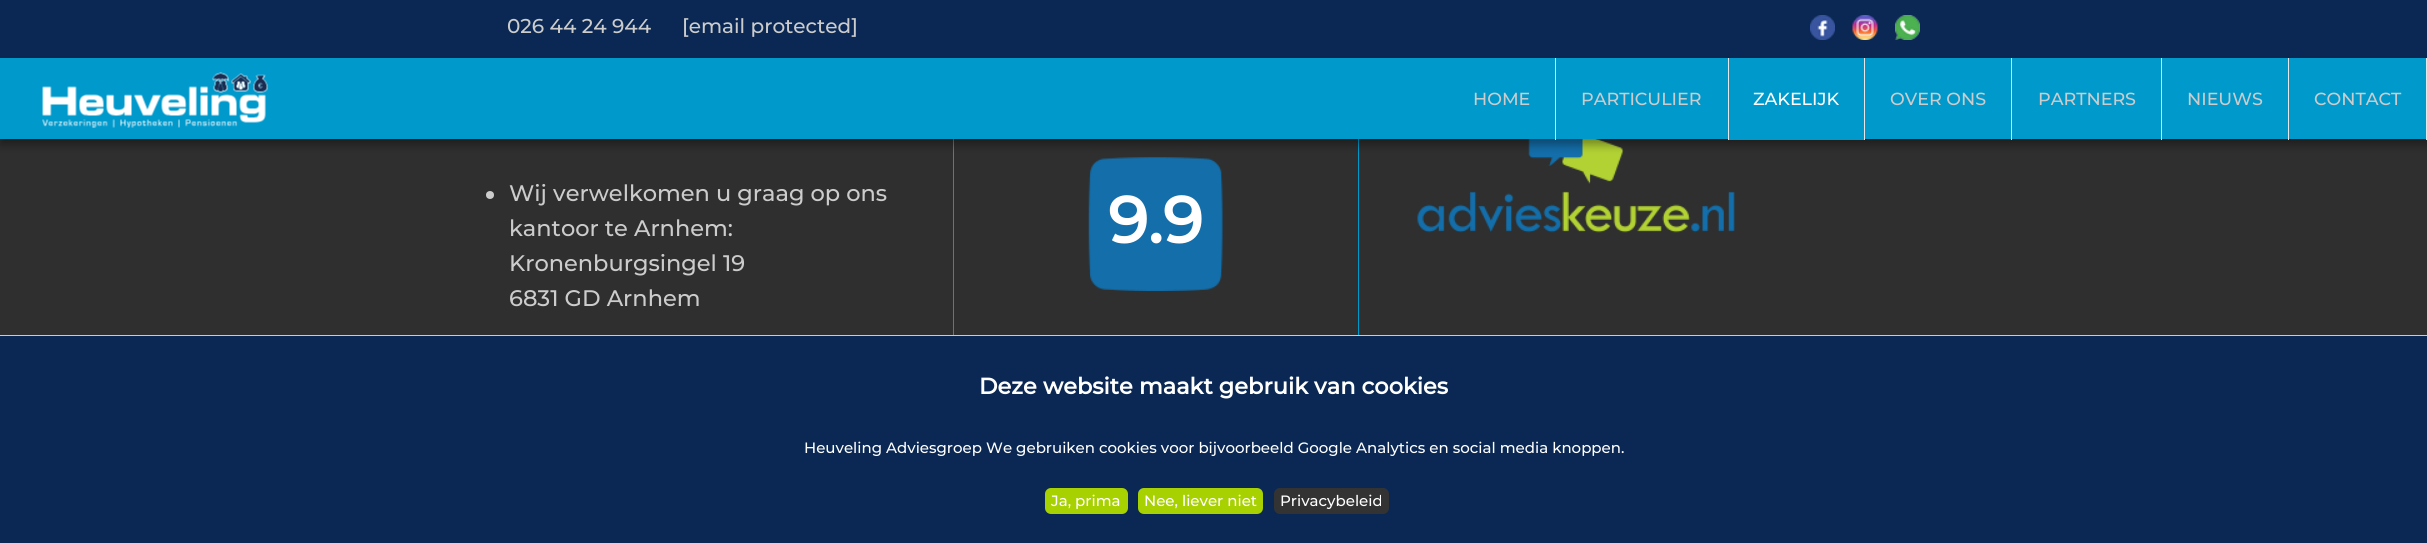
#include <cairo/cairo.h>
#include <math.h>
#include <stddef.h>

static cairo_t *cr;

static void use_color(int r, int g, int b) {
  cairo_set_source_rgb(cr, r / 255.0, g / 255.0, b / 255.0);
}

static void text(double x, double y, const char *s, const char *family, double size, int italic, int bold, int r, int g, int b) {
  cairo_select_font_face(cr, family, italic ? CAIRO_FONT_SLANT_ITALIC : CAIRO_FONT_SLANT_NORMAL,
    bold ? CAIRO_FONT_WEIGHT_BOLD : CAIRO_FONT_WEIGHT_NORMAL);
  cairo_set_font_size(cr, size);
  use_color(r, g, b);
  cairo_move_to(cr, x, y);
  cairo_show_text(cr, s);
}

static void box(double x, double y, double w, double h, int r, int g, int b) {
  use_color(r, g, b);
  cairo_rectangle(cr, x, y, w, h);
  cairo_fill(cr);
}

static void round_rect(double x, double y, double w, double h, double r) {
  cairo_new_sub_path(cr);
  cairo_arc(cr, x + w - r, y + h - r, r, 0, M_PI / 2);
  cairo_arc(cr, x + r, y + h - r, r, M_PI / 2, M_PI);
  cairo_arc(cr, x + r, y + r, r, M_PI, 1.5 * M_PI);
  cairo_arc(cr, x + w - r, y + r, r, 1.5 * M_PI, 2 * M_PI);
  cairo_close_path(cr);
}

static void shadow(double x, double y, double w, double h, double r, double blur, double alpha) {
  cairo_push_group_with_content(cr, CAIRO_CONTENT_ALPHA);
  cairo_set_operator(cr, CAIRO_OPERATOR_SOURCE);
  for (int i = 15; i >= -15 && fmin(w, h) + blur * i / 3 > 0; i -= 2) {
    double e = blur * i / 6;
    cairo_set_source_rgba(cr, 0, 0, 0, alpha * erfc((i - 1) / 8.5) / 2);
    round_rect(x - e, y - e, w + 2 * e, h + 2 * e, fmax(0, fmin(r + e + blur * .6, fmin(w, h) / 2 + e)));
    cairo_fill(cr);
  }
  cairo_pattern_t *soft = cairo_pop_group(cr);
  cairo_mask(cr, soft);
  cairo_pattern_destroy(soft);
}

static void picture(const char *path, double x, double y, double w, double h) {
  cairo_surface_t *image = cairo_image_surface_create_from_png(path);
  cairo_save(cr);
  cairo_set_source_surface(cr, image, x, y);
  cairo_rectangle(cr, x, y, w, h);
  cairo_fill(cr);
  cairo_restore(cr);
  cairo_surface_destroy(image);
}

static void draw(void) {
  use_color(46, 47, 46);
  cairo_paint(cr);
  box(0, 0, 2427, 58, 10, 40, 83);
  picture("img_01.png", 1810, 15, 25, 25);
  picture("img_02.png", 1852, 15, 26, 25);
  picture("img_03.png", 1895, 15, 25, 25);
  box(1358, 139, 1, 196, 0, 153, 204);
  box(953, 139, 1, 196, 0, 153, 204);
  picture("img_05.png", 1088, 157, 135, 134);
  picture("img_06.png", 1417, 139, 318, 94);
  use_color(0, 0, 0);
  shadow(0, 64, 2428, 81, 0, 4.5, 0.35);
  box(0, 58, 2426, 81, 0, 153, 204);
  picture("img_04.png", 42, 72, 226, 56);
  box(1555, 58, 1, 82, 231, 230, 230);
  box(1728, 58, 1, 82, 231, 230, 230);
  box(1864, 58, 1, 82, 231, 230, 230);
  box(1729, 139, 135, 1, 0, 153, 204);
  box(2011, 58, 1, 82, 231, 230, 230);
  box(2161, 58, 1, 82, 231, 230, 230);
  box(2288, 58, 1, 82, 231, 230, 230);
  box(2426, 58, 1, 82, 231, 230, 230);
  use_color(204, 204, 204);
  cairo_arc(cr, 490, 195, 4, 0, 2 * M_PI);
  cairo_fill(cr);
  box(0, 336, 2427, 207, 10, 40, 83);
  box(0, 335, 2427, 1, 204, 204, 204);
  use_color(167, 209, 0);
  round_rect(1045, 488, 83, 26, 6);
  cairo_fill(cr);
  round_rect(1138, 488, 125, 26, 6);
  cairo_fill(cr);
  use_color(51, 51, 51);
  round_rect(1274, 488, 115, 26, 6);
  cairo_fill(cr);
  text(507, 33, "026 44 24 944", "Montserrat Thin", 20, 0, 0, 204, 204, 204);
  text(682, 33, "[email protected]", "Montserrat Thin", 20, 0, 0, 204, 204, 204);
  text(1473, 105, "HOME", "Montserrat Thin", 17.5, 0, 0, 204, 204, 204);
  text(1581, 105, "PARTICULIER", "Montserrat Thin", 17.5, 0, 0, 204, 204, 204);
  text(1753, 105, "ZAKELIJK", "Montserrat Thin", 17.5, 0, 0, 255, 255, 255);
  text(1890, 105, "OVER ONS", "Montserrat Thin", 17.5, 0, 0, 204, 204, 204);
  text(2038, 105, "PARTNERS", "Montserrat Thin", 17.5, 0, 0, 204, 204, 204);
  text(2187, 105, "NIEUWS", "Montserrat Thin", 17.5, 0, 0, 204, 204, 204);
  text(2314, 105, "CONTACT", "Montserrat Thin", 17.5, 0, 0, 204, 204, 204);
  text(509, 201, "Wij verwelkomen u graag op ons", "Montserrat Thin", 22.5, 0, 0, 204, 204, 204);
  text(509, 236, "kantoor te Arnhem:", "Montserrat Thin", 22.5, 0, 0, 204, 204, 204);
  text(509, 271, "Kronenburgsingel 19", "Montserrat Thin", 22.5, 0, 0, 204, 204, 204);
  text(509, 306, "6831 GD Arnhem", "Montserrat Thin", 22.5, 0, 0, 204, 204, 204);
  text(1108, 243, "9.9", "Montserrat", 65, 0, 1, 255, 255, 255);
  text(979, 394, "Deze website maakt gebruik van cookies", "Montserrat", 22.5, 0, 1, 255, 255, 255);
  text(804, 453, "Heuveling Adviesgroep We gebruiken cookies voor bijvoorbeeld Google Analytics en social media knoppen.", "Montserrat Thin", 15, 0, 0, 255, 255, 255);
  text(1051, 506, "Ja, prima", "Montserrat Thin", 15, 0, 0, 255, 255, 255);
  text(1144, 506, "Nee, liever niet", "Montserrat Thin", 15, 0, 0, 255, 255, 255);
  text(1280, 506, "Privacybeleid", "Montserrat Thin", 15, 0, 0, 255, 255, 255);
}

int main(void) {
  cairo_surface_t *surface = cairo_image_surface_create(CAIRO_FORMAT_RGB24, 2427, 543);
  cr = cairo_create(surface);
  cairo_font_options_t *options = cairo_font_options_create();
  cairo_font_options_set_hint_metrics(options, CAIRO_HINT_METRICS_OFF);
  cairo_font_options_set_hint_style(options, CAIRO_HINT_STYLE_NONE);
  cairo_set_font_options(cr, options);
  cairo_set_miter_limit(cr, 4);
  draw();
  cairo_surface_write_to_png(surface, "out.png");
  cairo_font_options_destroy(options);
  cairo_destroy(cr);
  cairo_surface_destroy(surface);
  return 0;
}
